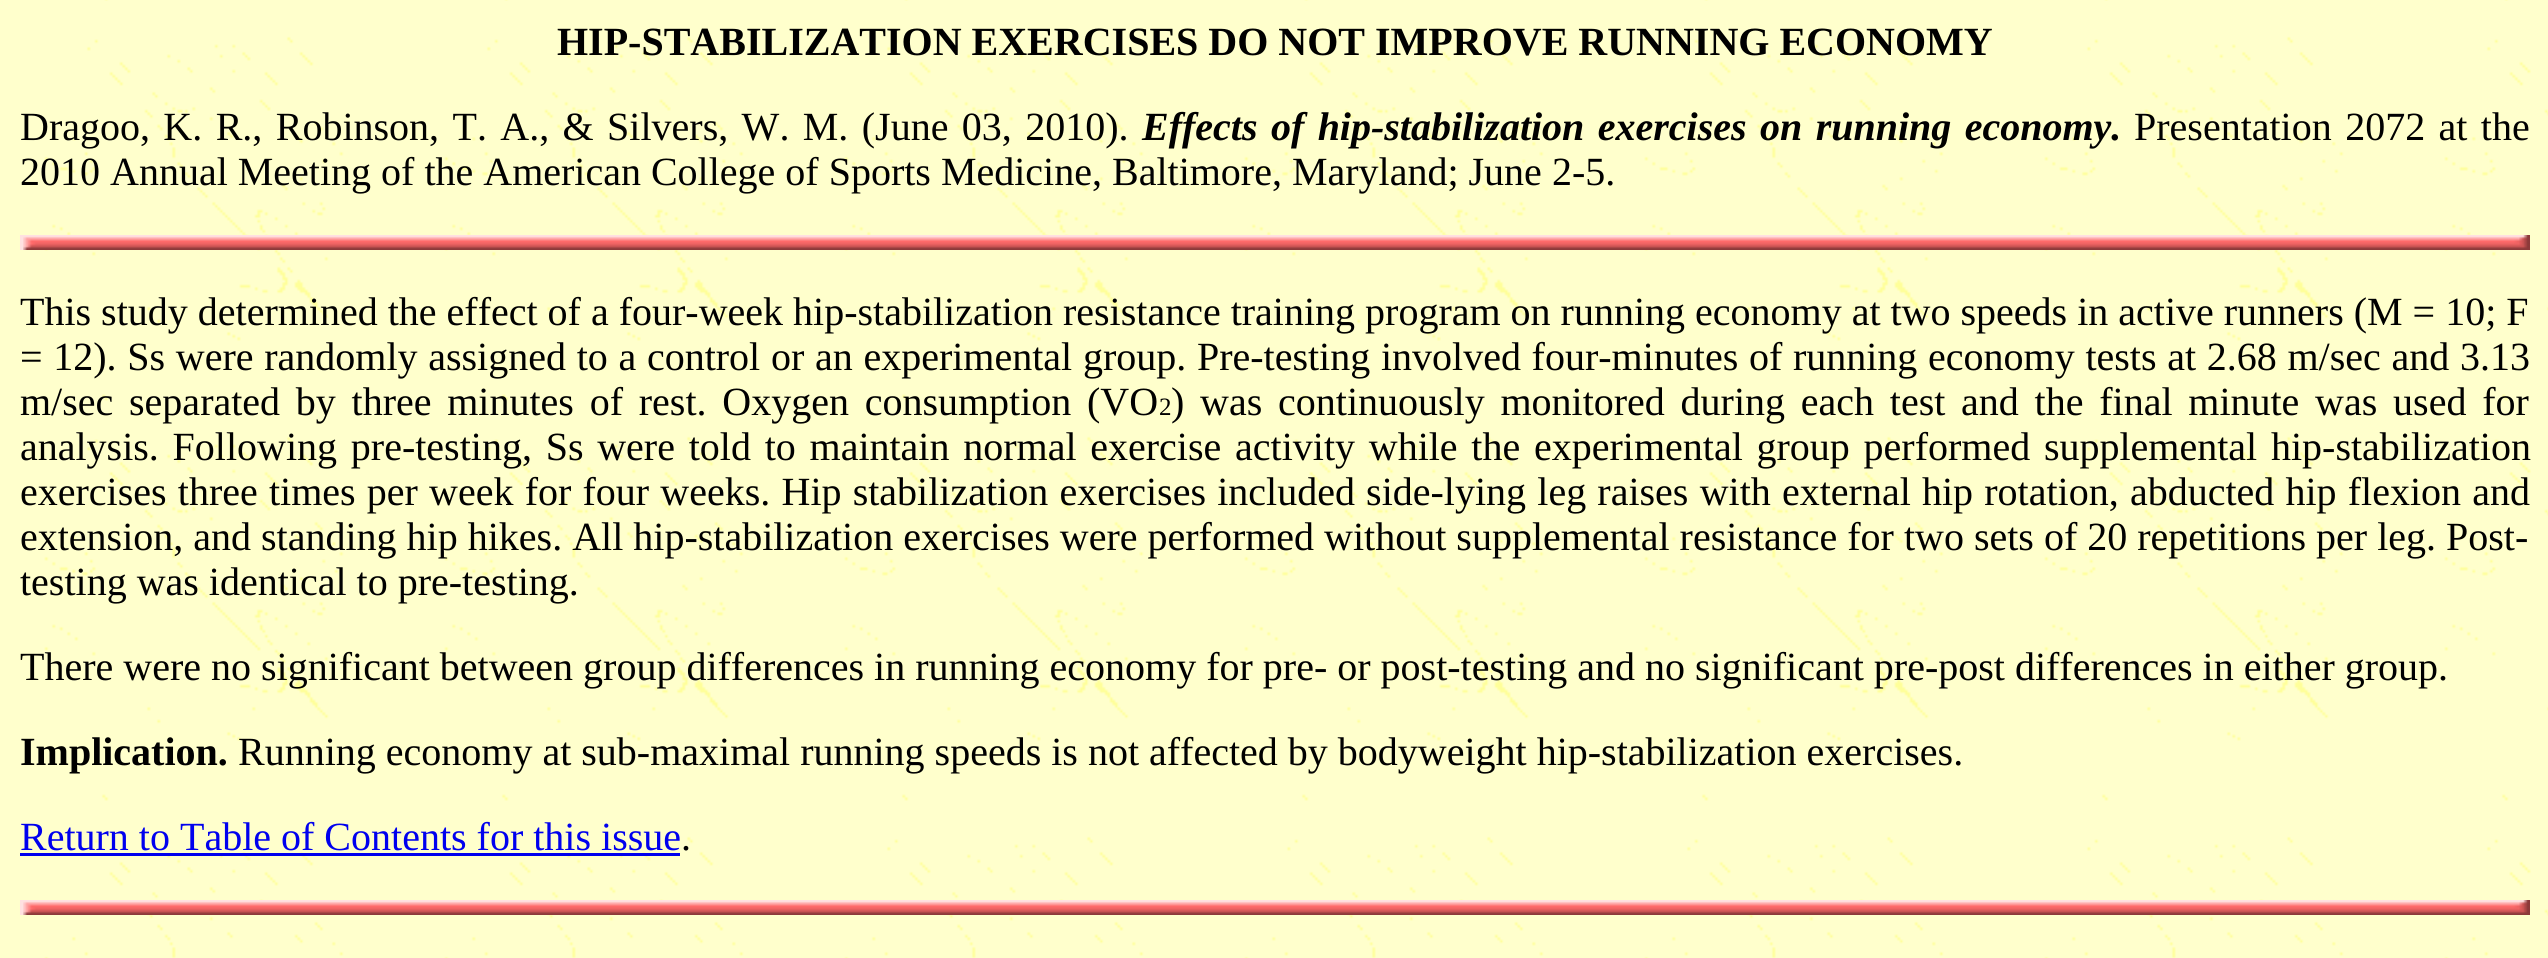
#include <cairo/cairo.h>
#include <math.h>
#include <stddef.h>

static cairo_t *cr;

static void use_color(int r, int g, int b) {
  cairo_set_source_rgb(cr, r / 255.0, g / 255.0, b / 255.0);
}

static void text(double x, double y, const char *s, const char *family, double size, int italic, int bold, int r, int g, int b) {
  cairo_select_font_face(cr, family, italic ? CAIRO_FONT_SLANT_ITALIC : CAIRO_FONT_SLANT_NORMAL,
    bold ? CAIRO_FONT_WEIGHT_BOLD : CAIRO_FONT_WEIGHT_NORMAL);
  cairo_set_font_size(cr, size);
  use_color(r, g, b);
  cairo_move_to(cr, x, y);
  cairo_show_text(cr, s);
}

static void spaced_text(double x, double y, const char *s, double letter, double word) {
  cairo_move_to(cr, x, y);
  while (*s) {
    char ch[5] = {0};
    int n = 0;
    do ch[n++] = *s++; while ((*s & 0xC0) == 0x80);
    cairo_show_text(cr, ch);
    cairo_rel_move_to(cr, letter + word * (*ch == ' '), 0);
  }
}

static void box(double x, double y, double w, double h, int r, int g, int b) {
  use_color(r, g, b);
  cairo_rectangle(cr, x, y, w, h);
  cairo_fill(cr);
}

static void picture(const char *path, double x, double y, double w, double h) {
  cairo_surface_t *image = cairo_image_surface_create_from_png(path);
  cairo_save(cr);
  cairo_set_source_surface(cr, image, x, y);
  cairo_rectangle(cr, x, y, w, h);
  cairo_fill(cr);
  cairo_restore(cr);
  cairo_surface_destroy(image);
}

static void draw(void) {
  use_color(255, 255, 255);
  cairo_paint(cr);
  picture("img_01.png", 0, 0, 2548, 958);
  picture("img_02.png", 20, 235, 2510, 15);
  box(20, 853, 660, 3, 0, 0, 238);
  picture("img_02.png", 20, 900, 2510, 15);
  text(557, 55, "HIP-STABILIZATION EXERCISES DO NOT IMPROVE RUNNING ECONOMY", "Liberation Serif", 40, 0, 1, 0, 0, 0);
  cairo_select_font_face(cr, "Liberation Serif", CAIRO_FONT_SLANT_NORMAL, CAIRO_FONT_WEIGHT_NORMAL);
  spaced_text(20, 140, "Dragoo, K. R., Robinson, T. A., & Silvers, W. M. (June 03, 2010).", 0, 3.4);
  cairo_select_font_face(cr, "Liberation Serif", CAIRO_FONT_SLANT_ITALIC, CAIRO_FONT_WEIGHT_BOLD);
  spaced_text(1142, 140, "Effects of hip-stabilization exercises on running economy.", 0, 3.4);
  cairo_select_font_face(cr, "Liberation Serif", CAIRO_FONT_SLANT_NORMAL, CAIRO_FONT_WEIGHT_NORMAL);
  spaced_text(2134, 140, "Presentation 2072 at the", 0, 3.4);
  text(20, 185, "2010 Annual Meeting of the American College of Sports Medicine, Baltimore, Maryland; June 2-5.", "Liberation Serif", 40, 0, 0, 0, 0, 0);
  text(20, 325, "This study determined the effect of a four-week hip-stabilization resistance training program on running economy at two speeds in active runners (M = 10; F", "Liberation Serif", 40, 0, 0, 0, 0, 0);
  spaced_text(20, 370, "= 12). Ss were randomly assigned to a control or an experimental group. Pre-testing involved four-minutes of running economy tests at 2.68 m/sec and 3.13", 0, 0.7);
  spaced_text(20, 415, "m/sec separated by three minutes of rest. Oxygen consumption (VO", 0, 5.75);
  text(1159, 415, "2", "Liberation Serif", 25, 0, 0, 0, 0, 0);
  cairo_set_font_size(cr, 40);
  spaced_text(1171, 415, ") was continuously monitored during each test and the final minute was used for", 0, 5.75);
  spaced_text(20, 460, "analysis. Following pre-testing, Ss were told to maintain normal exercise activity while the experimental group performed supplemental hip-stabilization", 0, 3.75);
  spaced_text(20, 505, "exercises three times per week for four weeks. Hip stabilization exercises included side-lying leg raises with external hip rotation, abducted hip flexion and", 0, 1.2);
  text(20, 550, "extension, and standing hip hikes. All hip-stabilization exercises were performed without supplemental resistance for two sets of 20 repetitions per leg. Post-", "Liberation Serif", 40, 0, 0, 0, 0, 0);
  text(20, 595, "testing was identical to pre-testing.", "Liberation Serif", 40, 0, 0, 0, 0, 0);
  text(20, 680, "There were no significant between group differences in running economy for pre- or post-testing and no significant pre-post differences in either group.", "Liberation Serif", 40, 0, 0, 0, 0, 0);
  text(20, 765, "Implication.", "Liberation Serif", 40, 0, 1, 0, 0, 0);
  text(238, 765, "Running economy at sub-maximal running speeds is not affected by bodyweight hip-stabilization exercises.", "Liberation Serif", 40, 0, 0, 0, 0, 0);
  text(20, 850, "Return to Table of Contents for this issue", "Liberation Serif", 40, 0, 0, 0, 0, 238);
  text(681, 850, ".", "Liberation Serif", 40, 0, 0, 0, 0, 0);
}

int main(void) {
  cairo_surface_t *surface = cairo_image_surface_create(CAIRO_FORMAT_RGB24, 2548, 958);
  cr = cairo_create(surface);
  cairo_font_options_t *options = cairo_font_options_create();
  cairo_font_options_set_hint_metrics(options, CAIRO_HINT_METRICS_OFF);
  cairo_font_options_set_hint_style(options, CAIRO_HINT_STYLE_NONE);
  cairo_set_font_options(cr, options);
  cairo_set_miter_limit(cr, 4);
  draw();
  cairo_surface_write_to_png(surface, "out.png");
  cairo_font_options_destroy(options);
  cairo_destroy(cr);
  cairo_surface_destroy(surface);
  return 0;
}
